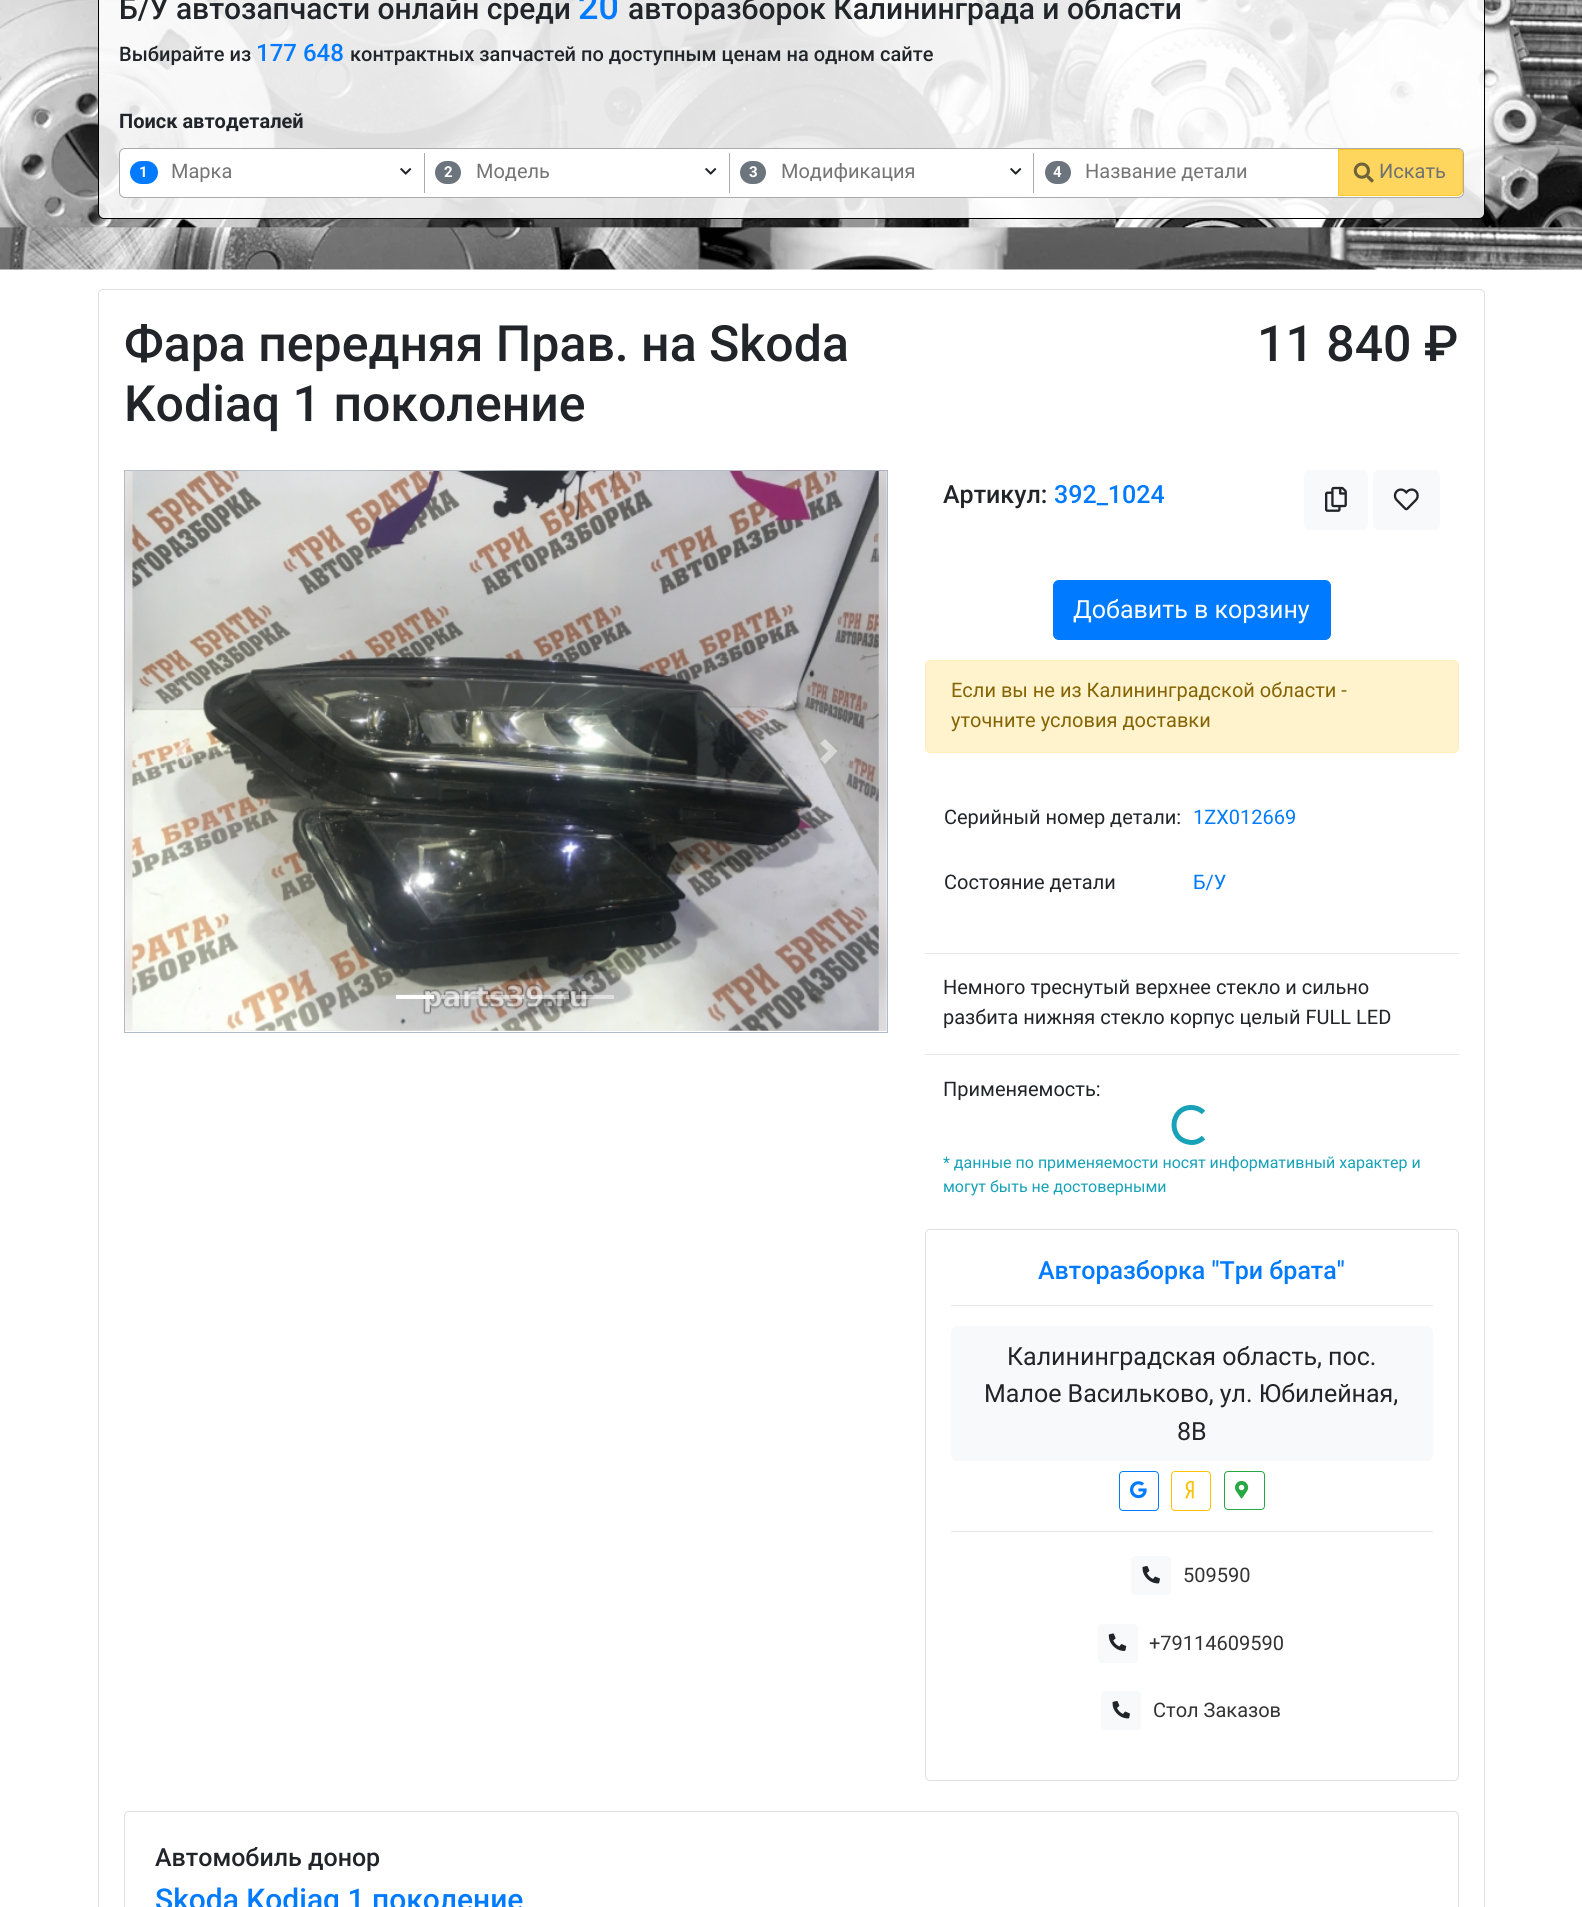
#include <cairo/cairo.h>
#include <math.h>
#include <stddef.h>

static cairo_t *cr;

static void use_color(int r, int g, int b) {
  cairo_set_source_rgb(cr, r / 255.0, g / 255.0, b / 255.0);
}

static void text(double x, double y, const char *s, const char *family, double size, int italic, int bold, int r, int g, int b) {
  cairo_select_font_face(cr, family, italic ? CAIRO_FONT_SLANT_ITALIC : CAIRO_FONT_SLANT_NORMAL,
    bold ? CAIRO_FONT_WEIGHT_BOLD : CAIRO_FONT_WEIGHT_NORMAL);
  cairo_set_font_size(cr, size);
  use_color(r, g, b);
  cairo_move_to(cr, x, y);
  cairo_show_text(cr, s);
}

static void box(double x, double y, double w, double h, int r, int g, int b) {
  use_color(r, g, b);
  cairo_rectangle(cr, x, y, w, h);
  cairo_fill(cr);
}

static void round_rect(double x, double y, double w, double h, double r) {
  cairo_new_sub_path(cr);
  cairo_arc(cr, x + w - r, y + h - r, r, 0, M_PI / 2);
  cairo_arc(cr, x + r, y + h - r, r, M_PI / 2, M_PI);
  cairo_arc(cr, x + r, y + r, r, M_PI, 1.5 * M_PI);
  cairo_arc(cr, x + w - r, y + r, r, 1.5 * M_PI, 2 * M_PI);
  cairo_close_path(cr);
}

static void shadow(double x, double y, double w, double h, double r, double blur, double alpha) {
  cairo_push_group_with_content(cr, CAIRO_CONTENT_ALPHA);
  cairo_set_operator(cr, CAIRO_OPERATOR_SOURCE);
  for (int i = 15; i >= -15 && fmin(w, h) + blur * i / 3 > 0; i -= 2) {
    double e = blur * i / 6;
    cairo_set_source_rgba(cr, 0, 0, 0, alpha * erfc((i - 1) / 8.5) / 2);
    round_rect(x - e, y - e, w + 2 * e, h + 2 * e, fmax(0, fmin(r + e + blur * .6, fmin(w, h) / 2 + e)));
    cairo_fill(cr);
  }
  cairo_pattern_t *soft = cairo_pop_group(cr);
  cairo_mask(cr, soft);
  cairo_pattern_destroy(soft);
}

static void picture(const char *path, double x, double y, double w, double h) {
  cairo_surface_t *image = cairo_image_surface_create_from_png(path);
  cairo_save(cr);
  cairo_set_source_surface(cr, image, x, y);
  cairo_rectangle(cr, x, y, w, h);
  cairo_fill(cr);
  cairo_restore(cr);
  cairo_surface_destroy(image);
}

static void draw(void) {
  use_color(255, 255, 255);
  cairo_paint(cr);
  picture("img_01.png", 0, 0, 1582, 270);
  cairo_set_source_rgba(cr, 1, 1, 1, 0.87);
  round_rect(98.5, -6.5, 1386, 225, 5.5);
  cairo_fill_preserve(cr);
  use_color(0, 0, 0);
  cairo_set_line_width(cr, 1);
  cairo_stroke(cr);
  use_color(255, 255, 255);
  round_rect(119.5, 148.5, 1344, 49, 5.5);
  cairo_fill_preserve(cr);
  use_color(170, 170, 170);
  cairo_stroke(cr);
  box(424, 153, 1, 40, 170, 170, 170);
  use_color(0, 123, 255);
  round_rect(130, 161, 28, 23, 11.5);
  cairo_fill(cr);
  picture("img_02.png", 400, 168, 12, 7);
  box(729, 153, 1, 40, 170, 170, 170);
  use_color(108, 117, 125);
  round_rect(435, 161, 26, 23, 11.5);
  cairo_fill(cr);
  picture("img_02.png", 705, 168, 12, 7);
  box(1033, 153, 1, 40, 170, 170, 170);
  use_color(108, 117, 125);
  round_rect(740, 161, 26, 23, 11.5);
  cairo_fill(cr);
  picture("img_02.png", 1010, 168, 12, 7);
  round_rect(1045, 161, 26, 23, 11.5);
  cairo_fill(cr);
  cairo_set_source_rgba(cr, 1, 0.757, 0.027, 0.65);
  cairo_new_path(cr);
  cairo_move_to(cr, 1338, 149);
  cairo_line_to(cr, 1457, 149);
  cairo_curve_to(cr, 1460.5, 149, 1463, 151.5, 1463, 155);
  cairo_line_to(cr, 1463, 190);
  cairo_curve_to(cr, 1463, 193.5, 1460.5, 196, 1457, 196);
  cairo_line_to(cr, 1338, 196);
  cairo_close_path(cr);
  cairo_fill(cr);
  cairo_new_path(cr);
  cairo_move_to(cr, 1338.5, 149.5);
  cairo_line_to(cr, 1457, 149.5);
  cairo_curve_to(cr, 1460, 149.5, 1462.5, 152, 1462.5, 155);
  cairo_line_to(cr, 1462.5, 190);
  cairo_curve_to(cr, 1462.5, 193, 1460, 195.5, 1457, 195.5);
  cairo_line_to(cr, 1338.5, 195.5);
  cairo_close_path(cr);
  cairo_stroke(cr);
  picture("img_03.png", 1353, 162, 21, 21);
  round_rect(98.5, 289.5, 1386, 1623, 4.5);
  use_color(223, 223, 223);
  cairo_stroke(cr);
  cairo_rectangle(cr, 124.5, 470.5, 763, 562);
  use_color(176, 186, 202);
  cairo_stroke(cr);
  cairo_save(cr);
  cairo_rectangle(cr, 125, 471, 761, 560);
  cairo_clip(cr);
  use_color(235, 235, 235);
  shadow(109, 455, 794, 593, 0, 16, 1);
  cairo_restore(cr);
  picture("img_04.png", 125, 470, 762, 561);
  picture("img_05.png", 132, 471, 747, 560);
  cairo_set_source_rgba(cr, 1, 1, 1, 0.5);
  cairo_new_path(cr);
  cairo_move_to(cr, 186.5, 739);
  cairo_line_to(cr, 174, 751);
  cairo_line_to(cr, 186.5, 764);
  cairo_line_to(cr, 191, 759);
  cairo_line_to(cr, 183.5, 751);
  cairo_line_to(cr, 191, 743.5);
  cairo_close_path(cr);
  cairo_fill(cr);
  cairo_new_path(cr);
  cairo_move_to(cr, 825, 739);
  cairo_line_to(cr, 820, 743.5);
  cairo_line_to(cr, 828, 751);
  cairo_line_to(cr, 820, 759);
  cairo_line_to(cr, 825, 764);
  cairo_line_to(cr, 837.5, 751);
  cairo_close_path(cr);
  cairo_fill(cr);
  box(396, 995, 38, 4, 255, 255, 255);
  cairo_set_source_rgba(cr, 1, 1, 1, 0.5);
  cairo_rectangle(cr, 441, 995, 38, 4);
  cairo_fill(cr);
  cairo_rectangle(cr, 486, 995, 38, 4);
  cairo_fill(cr);
  cairo_rectangle(cr, 531, 995, 38, 4);
  cairo_fill(cr);
  cairo_rectangle(cr, 576, 995, 38, 4);
  cairo_fill(cr);
  use_color(248, 249, 250);
  round_rect(1304, 470, 64, 60, 6);
  cairo_fill(cr);
  picture("img_06.png", 1325, 486, 22, 26);
  round_rect(1373, 470, 67, 60, 6);
  cairo_fill(cr);
  picture("img_07.png", 1393, 488, 26, 23);
  use_color(0, 123, 255);
  round_rect(1053.5, 580.5, 277, 59, 5.5);
  cairo_fill_preserve(cr);
  cairo_stroke(cr);
  use_color(255, 243, 205);
  round_rect(925.5, 660.5, 533, 92, 4.5);
  cairo_fill_preserve(cr);
  use_color(255, 238, 186);
  cairo_stroke(cr);
  box(925, 953, 534, 1, 230, 230, 230);
  box(925, 1054, 534, 1, 230, 230, 230);
  cairo_new_path(cr);
  cairo_move_to(cr, 1203.5, 1137.5);
  cairo_curve_to(cr, 1199.5, 1141.5, 1193.5, 1143.5, 1188, 1142);
  cairo_curve_to(cr, 1167.5, 1138, 1170.5, 1107.5, 1191, 1107.5);
  cairo_curve_to(cr, 1196, 1107.5, 1200.5, 1109.5, 1203.5, 1112.5);
  use_color(23, 162, 184);
  cairo_set_line_width(cr, 5);
  cairo_stroke(cr);
  round_rect(925.5, 1229.5, 533, 551, 4.5);
  use_color(223, 223, 223);
  cairo_set_line_width(cr, 1);
  cairo_stroke(cr);
  box(951, 1305, 482, 1, 230, 230, 230);
  use_color(248, 249, 250);
  round_rect(951, 1326, 482, 135, 6);
  cairo_fill(cr);
  round_rect(1119.5, 1471.5, 39, 39, 3.5);
  use_color(0, 123, 255);
  cairo_stroke(cr);
  picture("img_08.png", 1130, 1481, 17, 18);
  round_rect(1171.5, 1471.5, 39, 39, 3.5);
  use_color(255, 193, 7);
  cairo_stroke(cr);
  picture("img_09.png", 1185, 1480, 9, 19);
  round_rect(1224.5, 1471.5, 40, 38, 3.5);
  use_color(40, 167, 69);
  cairo_stroke(cr);
  picture("img_10.png", 1235, 1480, 14, 19);
  box(951, 1531, 482, 1, 230, 230, 230);
  use_color(248, 249, 250);
  round_rect(1131, 1556, 40, 39, 4);
  cairo_fill(cr);
  picture("img_11.png", 1142, 1566, 18, 18);
  round_rect(1098, 1624, 40, 39, 4);
  cairo_fill(cr);
  picture("img_12.png", 1108, 1633, 19, 18);
  round_rect(1101, 1691, 40, 39, 4);
  cairo_fill(cr);
  picture("img_11.png", 1112, 1701, 18, 18);
  round_rect(124.5, 1811.5, 1334, 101, 4.5);
  use_color(223, 223, 223);
  cairo_stroke(cr);
  text(119, 19, "Б/У автозапчасти онлайн среди", "Roboto Medium", 30, 0, 0, 33, 37, 41);
  text(578, 19, "20", "Roboto Medium", 36, 0, 0, 0, 123, 255);
  text(628, 19, "авторазборок Калининграда и области", "Roboto Medium", 30, 0, 0, 33, 37, 41);
  text(119, 61, "Выбирайте из", "Roboto Medium", 20, 0, 0, 33, 37, 41);
  text(256, 61, "177 648", "Roboto Medium", 24, 0, 0, 0, 123, 255);
  text(350, 61, "контрактных запчастей по доступным ценам на одном сайте", "Roboto Medium", 20, 0, 0, 33, 37, 41);
  text(119, 128, "Поиск автодеталей", "Roboto", 20, 0, 1, 33, 37, 41);
  text(139, 177, "1", "Roboto", 15, 0, 1, 255, 255, 255);
  text(171, 178, "Марка", "Roboto", 20, 0, 0, 117, 117, 117);
  text(444, 177, "2", "Roboto", 15, 0, 1, 255, 255, 255);
  text(476, 178, "Модель", "Roboto", 20, 0, 0, 117, 117, 117);
  text(749, 177, "3", "Roboto", 15, 0, 1, 255, 255, 255);
  text(781, 178, "Модификация", "Roboto", 20, 0, 0, 117, 117, 117);
  text(1053, 177, "4", "Roboto", 15, 0, 1, 255, 255, 255);
  text(1085, 178, "Название детали", "Roboto", 20, 0, 0, 117, 117, 117);
  text(1379, 178, "Искать", "Roboto", 20, 0, 0, 111, 113, 116);
  text(124, 361, "Фара передняя Прав. на Skoda", "Roboto Medium", 50, 0, 0, 33, 37, 41);
  text(124, 421, "Kodiaq 1 поколение", "Roboto Medium", 50, 0, 0, 33, 37, 41);
  text(1257, 361, "11 840 ₽", "Roboto Medium", 50, 0, 0, 33, 37, 41);
  text(943, 503, "Артикул:", "Roboto Medium", 25, 0, 0, 33, 37, 41);
  text(1054, 503, "392_1024", "Roboto Medium", 25, 0, 0, 0, 123, 255);
  text(1073, 618, "Добавить в корзину", "Roboto", 25, 0, 0, 255, 255, 255);
  text(951, 697, "Если вы не из Калининградской области -", "Roboto", 20, 0, 0, 133, 100, 4);
  text(951, 727, "уточните условия доставки", "Roboto", 20, 0, 0, 133, 100, 4);
  text(944, 824, "Серийный номер детали:", "Roboto", 20, 0, 0, 33, 37, 41);
  text(1193, 824, "1ZX012669", "Roboto", 20, 0, 0, 0, 123, 255);
  text(944, 889, "Состояние детали", "Roboto", 20, 0, 0, 33, 37, 41);
  text(1193, 889, "Б/У", "Roboto", 20, 0, 0, 0, 123, 255);
  text(943, 994, "Немного треснутый верхнее стекло и сильно", "Roboto", 20, 0, 0, 33, 37, 41);
  text(943, 1024, "разбита нижняя стекло корпус целый FULL LED", "Roboto", 20, 0, 0, 33, 37, 41);
  text(943, 1096, "Применяемость:", "Roboto", 20, 0, 0, 33, 37, 41);
  text(943, 1168, "* данные по применяемости носят информативный характер и", "Roboto", 16, 0, 0, 23, 162, 184);
  text(943, 1192, "могут быть не достоверными", "Roboto", 16, 0, 0, 23, 162, 184);
  text(1038, 1279, "Авторазборка \"Три брата\"", "Roboto Medium", 25, 0, 0, 0, 123, 255);
  text(1007, 1365, "Калининградская область, пос.", "Roboto", 25, 0, 0, 33, 37, 41);
  text(984, 1402, "Малое Васильково, ул. Юбилейная,", "Roboto", 25, 0, 0, 33, 37, 41);
  text(1177, 1440, "8В", "Roboto", 25, 0, 0, 33, 37, 41);
  text(1183, 1582, "509590", "Roboto", 20, 0, 0, 51, 51, 51);
  text(1149, 1650, "+79114609590", "Roboto", 20, 0, 0, 51, 51, 51);
  text(1153, 1717, "Стол Заказов", "Roboto", 20, 0, 0, 51, 51, 51);
  text(155, 1866, "Автомобиль донор", "Roboto Medium", 25, 0, 0, 33, 37, 41);
  text(155, 1910, "Skoda Kodiaq 1 поколение", "Roboto Medium", 30, 0, 0, 0, 123, 255);
}

int main(void) {
  cairo_surface_t *surface = cairo_image_surface_create(CAIRO_FORMAT_RGB24, 1582, 1907);
  cr = cairo_create(surface);
  cairo_font_options_t *options = cairo_font_options_create();
  cairo_font_options_set_hint_metrics(options, CAIRO_HINT_METRICS_OFF);
  cairo_font_options_set_hint_style(options, CAIRO_HINT_STYLE_NONE);
  cairo_set_font_options(cr, options);
  cairo_set_miter_limit(cr, 4);
  draw();
  cairo_surface_write_to_png(surface, "out.png");
  cairo_font_options_destroy(options);
  cairo_destroy(cr);
  cairo_surface_destroy(surface);
  return 0;
}
